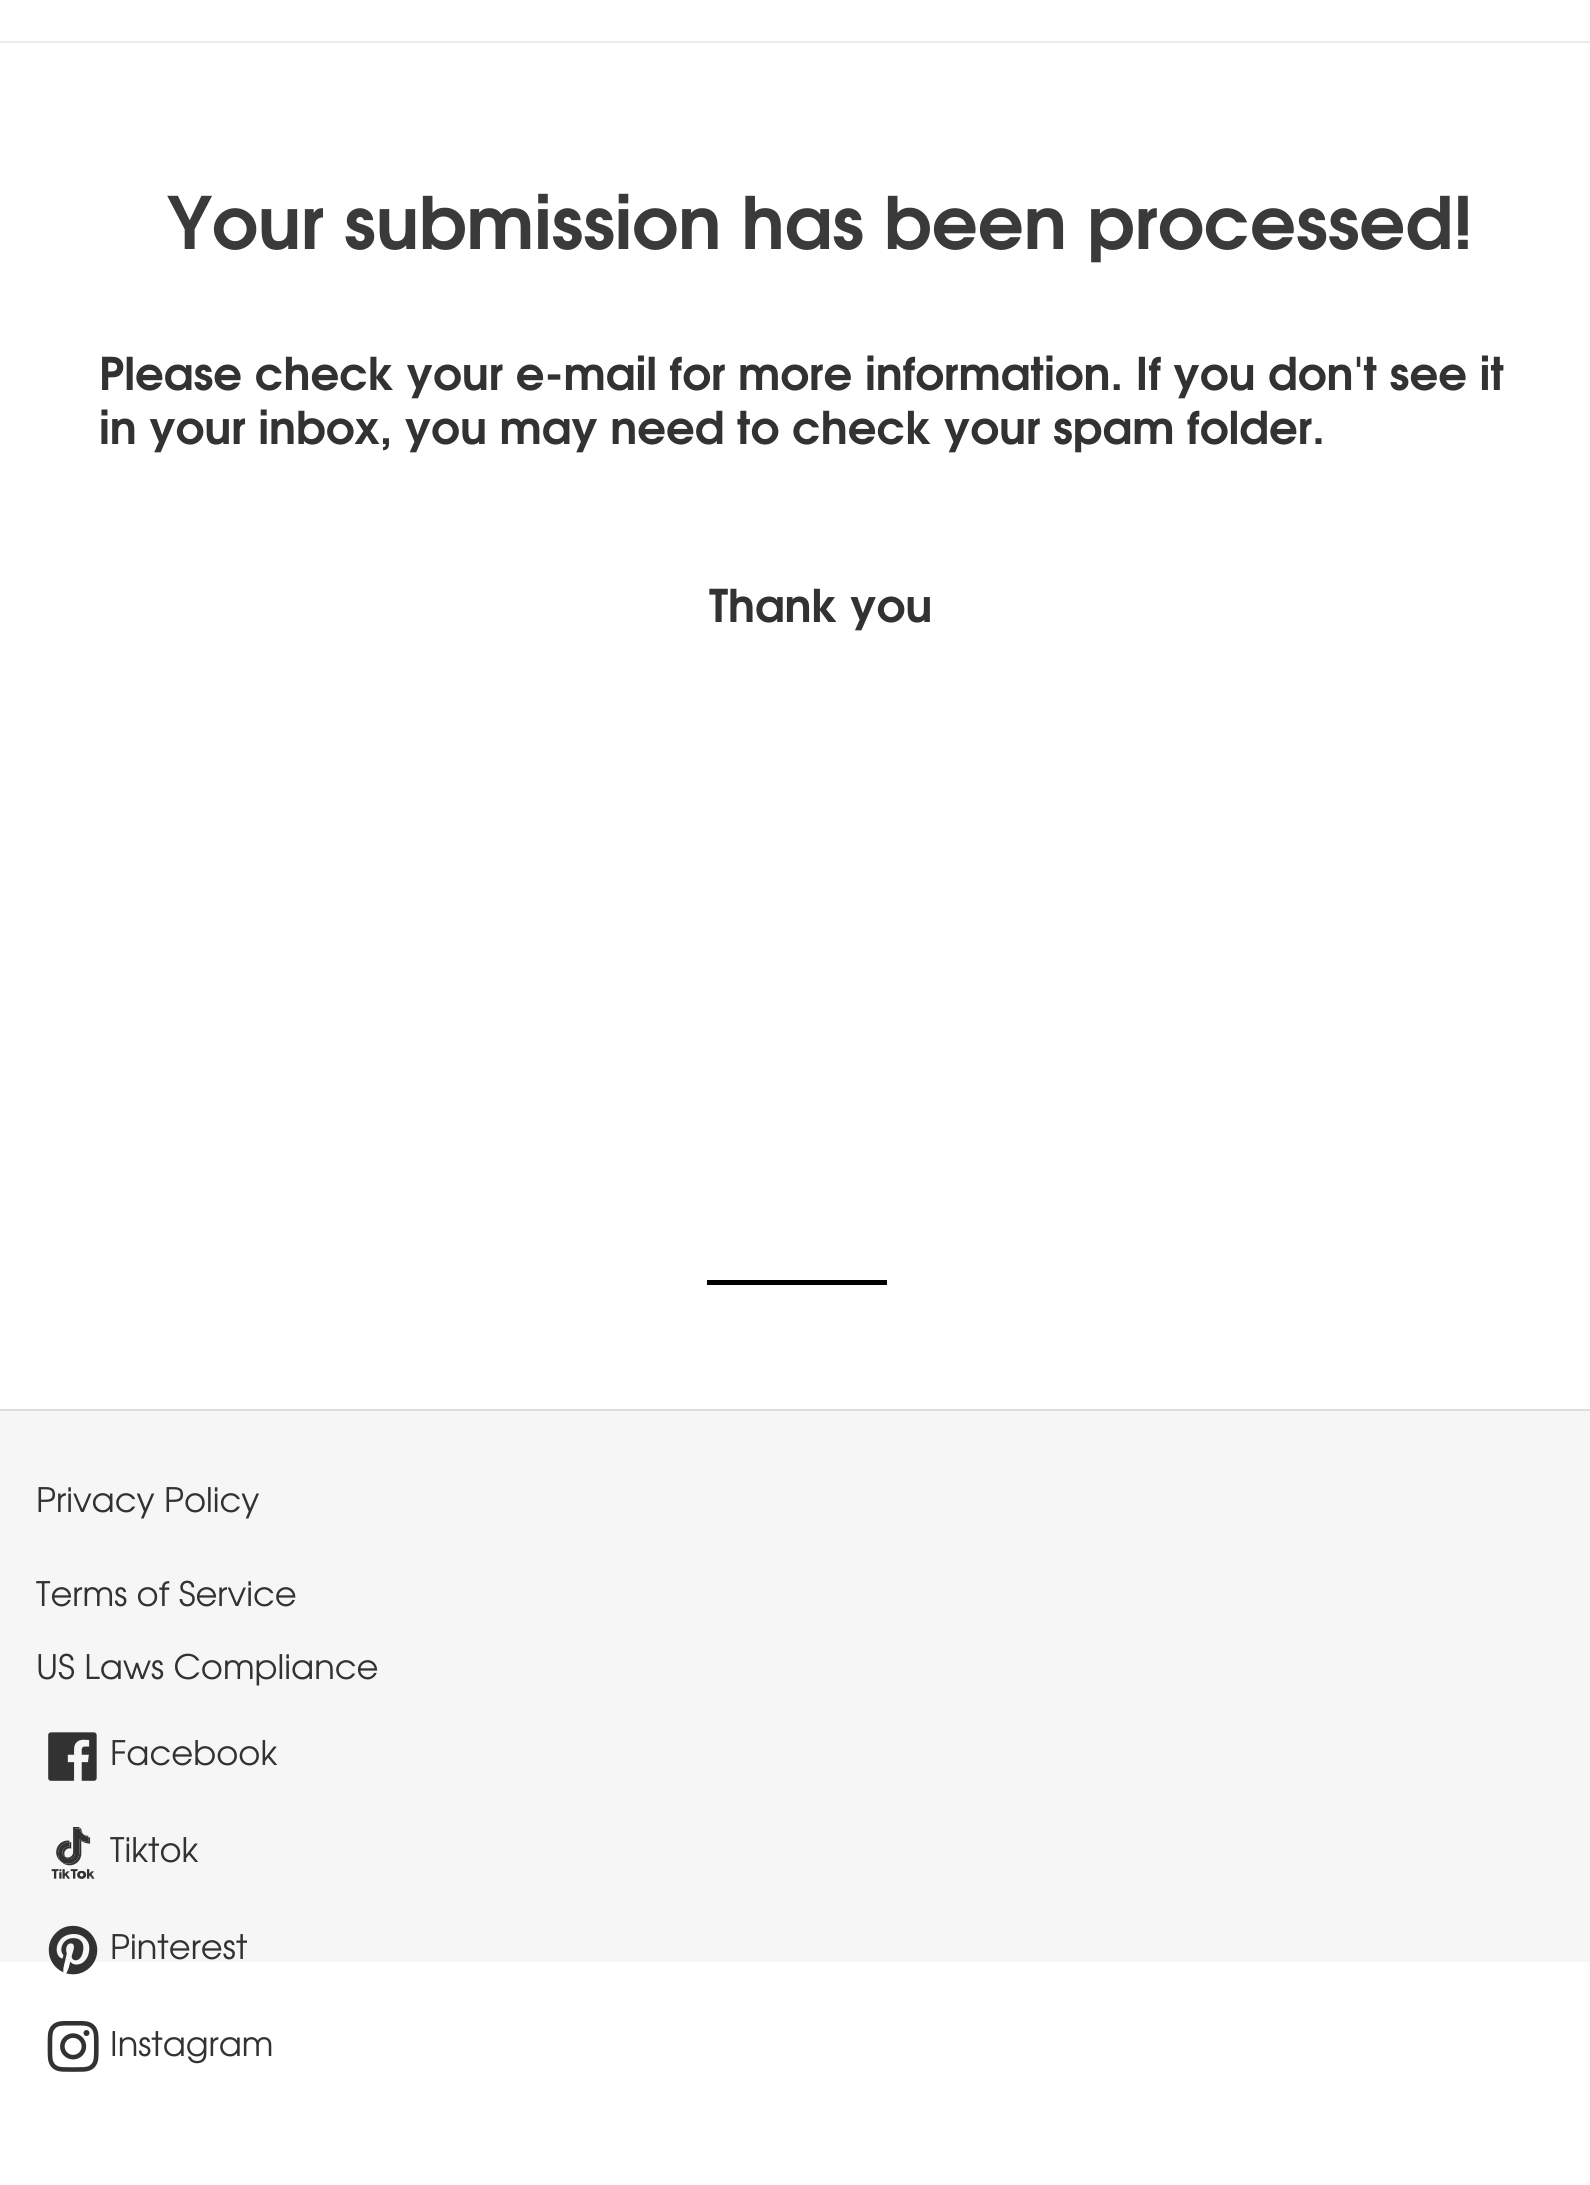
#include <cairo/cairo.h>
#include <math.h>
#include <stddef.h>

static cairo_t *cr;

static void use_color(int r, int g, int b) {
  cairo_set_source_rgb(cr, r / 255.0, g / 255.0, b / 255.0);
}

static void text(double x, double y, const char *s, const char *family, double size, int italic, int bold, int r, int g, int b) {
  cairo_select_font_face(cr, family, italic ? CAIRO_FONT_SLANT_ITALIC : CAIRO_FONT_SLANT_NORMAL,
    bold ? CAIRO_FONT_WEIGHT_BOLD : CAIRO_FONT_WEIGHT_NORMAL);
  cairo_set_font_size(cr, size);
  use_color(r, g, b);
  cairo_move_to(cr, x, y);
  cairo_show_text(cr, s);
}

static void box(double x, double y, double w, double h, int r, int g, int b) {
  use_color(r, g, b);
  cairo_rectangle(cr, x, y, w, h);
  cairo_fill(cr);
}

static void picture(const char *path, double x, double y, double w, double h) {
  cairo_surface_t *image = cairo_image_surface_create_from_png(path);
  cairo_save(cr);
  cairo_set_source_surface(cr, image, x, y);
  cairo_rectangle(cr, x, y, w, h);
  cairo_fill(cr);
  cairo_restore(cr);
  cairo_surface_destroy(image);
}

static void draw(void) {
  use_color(255, 255, 255);
  cairo_paint(cr);
  box(0, 41, 1590, 2, 235, 235, 235);
  box(707, 1280, 180, 5, 0, 0, 0);
  box(0, 1411, 1590, 551, 246, 246, 246);
  box(0, 1409, 1590, 2, 221, 221, 221);
  picture("img_01.png", 48, 1732, 49, 49);
  picture("img_02.png", 51, 1827, 44, 52);
  picture("img_03.png", 48, 1925, 50, 50);
  picture("img_04.png", 47, 2021, 52, 51);
  text(167, 249, "Your submission has been processed!", "TeX Gyre Adventor", 72, 0, 1, 58, 58, 58);
  text(99, 390, "Please check your e-mail for more information. If you don't see it", "TeX Gyre Adventor", 45, 0, 1, 51, 50, 50);
  text(99, 444, "in your inbox, you may need to check your spam folder.", "TeX Gyre Adventor", 45, 0, 1, 51, 50, 50);
  text(709, 622, "Thank you", "TeX Gyre Adventor", 45, 0, 1, 51, 50, 50);
  text(36, 1512, "Privacy Policy", "TeX Gyre Adventor", 33.75, 0, 0, 51, 50, 50);
  text(36, 1606, "Terms of Service", "TeX Gyre Adventor", 33.75, 0, 0, 51, 50, 50);
  text(36, 1679, "US Laws Compliance", "TeX Gyre Adventor", 33.75, 0, 0, 51, 50, 50);
  text(110, 1765, "Facebook", "TeX Gyre Adventor", 33.75, 0, 0, 51, 50, 50);
  text(110, 1862, "Tiktok", "TeX Gyre Adventor", 33.75, 0, 0, 51, 50, 50);
  text(110, 1959, "Pinterest", "TeX Gyre Adventor", 33.75, 0, 0, 51, 50, 50);
  text(110, 2056, "Instagram", "TeX Gyre Adventor", 33.75, 0, 0, 51, 50, 50);
}

int main(void) {
  cairo_surface_t *surface = cairo_image_surface_create(CAIRO_FORMAT_RGB24, 1590, 2185);
  cr = cairo_create(surface);
  cairo_font_options_t *options = cairo_font_options_create();
  cairo_font_options_set_hint_metrics(options, CAIRO_HINT_METRICS_OFF);
  cairo_font_options_set_hint_style(options, CAIRO_HINT_STYLE_NONE);
  cairo_set_font_options(cr, options);
  cairo_set_miter_limit(cr, 4);
  draw();
  cairo_surface_write_to_png(surface, "out.png");
  cairo_font_options_destroy(options);
  cairo_destroy(cr);
  cairo_surface_destroy(surface);
  return 0;
}
